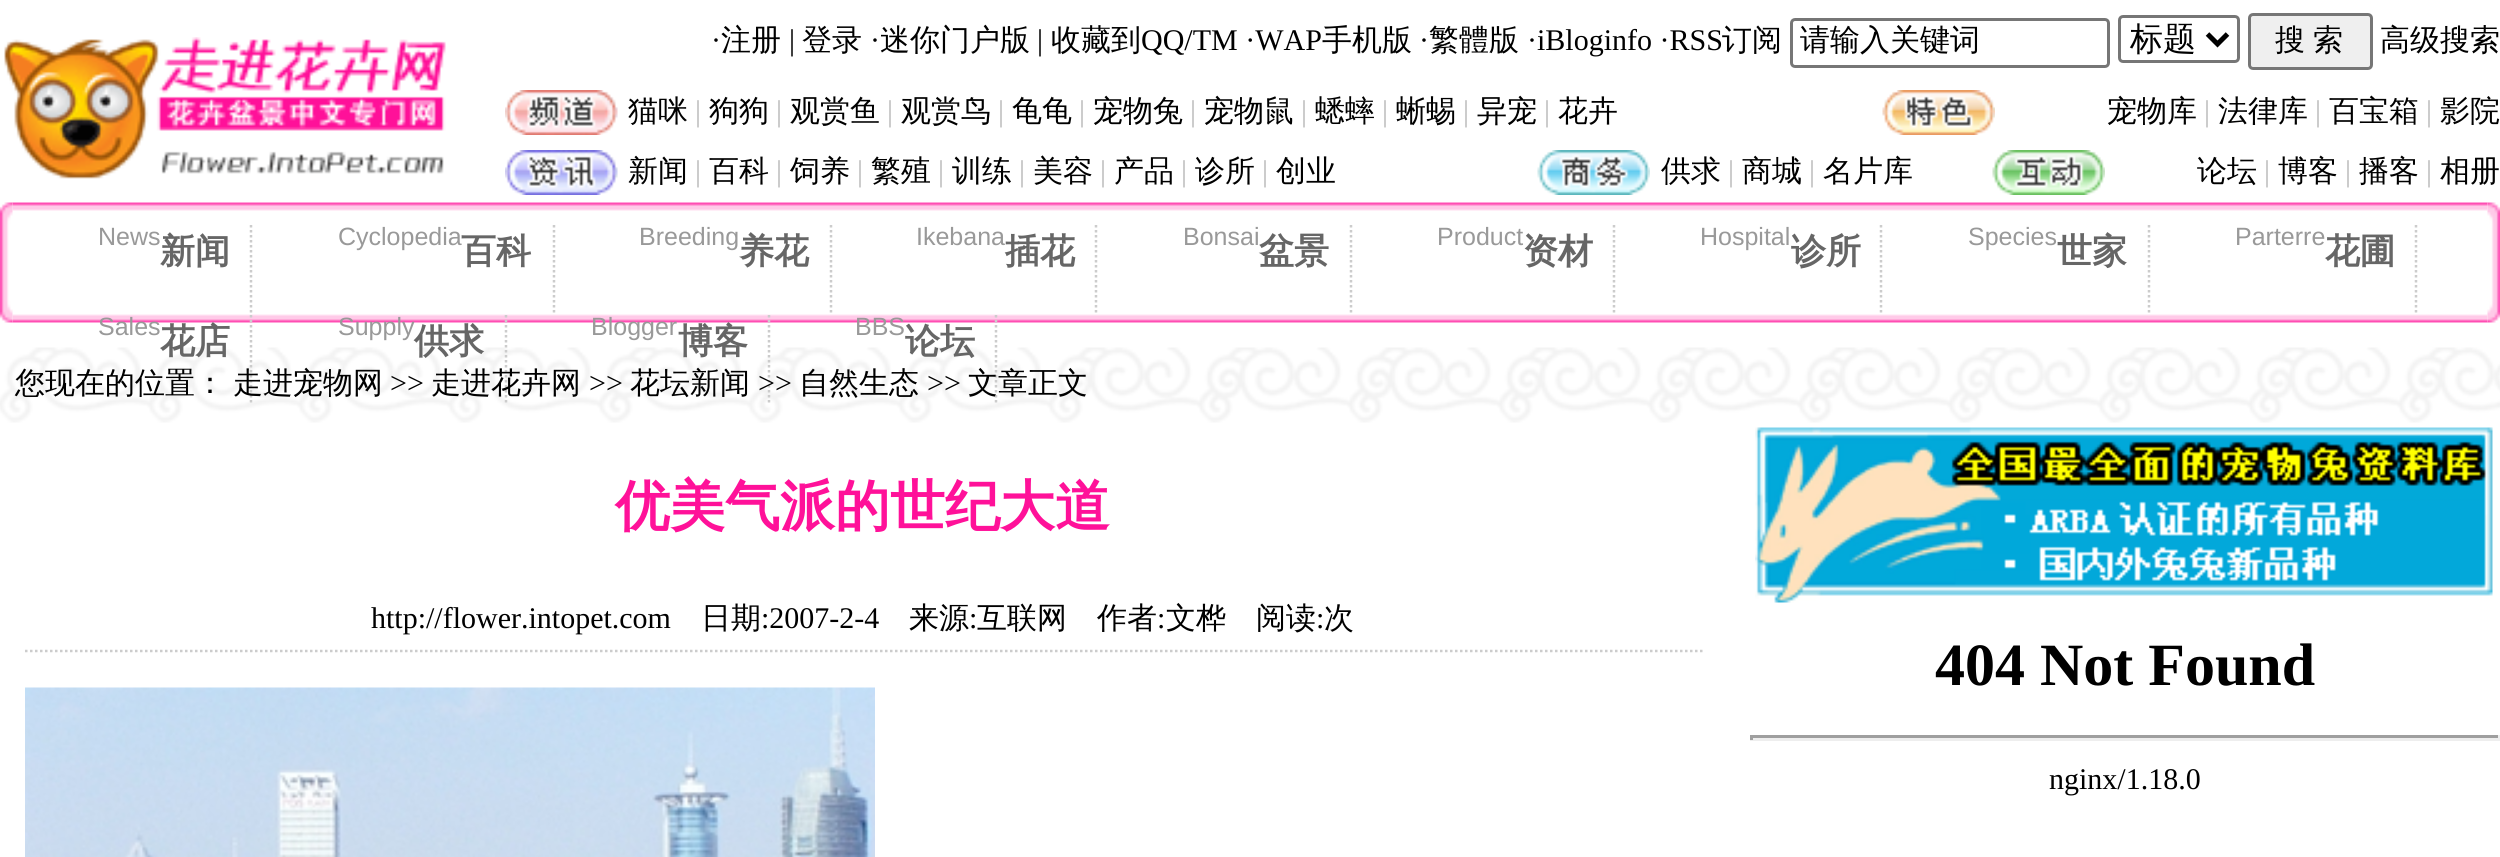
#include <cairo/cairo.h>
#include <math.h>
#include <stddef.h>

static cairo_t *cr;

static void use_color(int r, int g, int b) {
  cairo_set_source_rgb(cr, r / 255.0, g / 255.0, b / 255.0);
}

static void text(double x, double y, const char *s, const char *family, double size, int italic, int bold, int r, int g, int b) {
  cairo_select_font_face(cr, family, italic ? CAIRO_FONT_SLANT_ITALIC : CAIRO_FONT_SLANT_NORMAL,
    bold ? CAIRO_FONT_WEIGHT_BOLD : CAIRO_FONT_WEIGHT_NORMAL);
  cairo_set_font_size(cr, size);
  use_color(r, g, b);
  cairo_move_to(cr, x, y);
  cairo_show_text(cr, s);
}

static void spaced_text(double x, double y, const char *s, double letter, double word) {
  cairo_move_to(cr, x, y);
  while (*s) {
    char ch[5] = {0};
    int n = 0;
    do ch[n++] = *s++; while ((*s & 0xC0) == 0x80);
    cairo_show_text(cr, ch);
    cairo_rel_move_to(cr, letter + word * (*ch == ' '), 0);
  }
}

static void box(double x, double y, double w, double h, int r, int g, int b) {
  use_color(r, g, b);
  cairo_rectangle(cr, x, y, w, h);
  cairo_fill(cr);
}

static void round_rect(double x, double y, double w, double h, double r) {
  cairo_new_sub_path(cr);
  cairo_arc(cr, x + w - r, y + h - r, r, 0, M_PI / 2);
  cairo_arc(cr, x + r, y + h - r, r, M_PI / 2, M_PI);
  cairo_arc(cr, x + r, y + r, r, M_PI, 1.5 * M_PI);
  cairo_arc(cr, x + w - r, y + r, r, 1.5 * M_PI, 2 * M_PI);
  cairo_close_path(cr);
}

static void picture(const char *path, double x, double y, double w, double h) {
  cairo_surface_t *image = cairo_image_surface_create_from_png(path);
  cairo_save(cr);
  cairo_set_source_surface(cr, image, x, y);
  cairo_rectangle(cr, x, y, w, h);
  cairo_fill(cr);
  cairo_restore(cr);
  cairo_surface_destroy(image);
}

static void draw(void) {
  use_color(255, 255, 255);
  cairo_paint(cr);
  picture("img_01.png", 4, 37, 442, 142);
  round_rect(1791.5, 19.5, 317, 47, 3.5);
  use_color(118, 118, 118);
  cairo_set_line_width(cr, 3);
  cairo_stroke(cr);
  round_rect(2119.5, 16.5, 119, 45, 3.5);
  cairo_stroke(cr);
  cairo_new_path(cr);
  cairo_move_to(cr, 2207.5, 34);
  cairo_line_to(cr, 2217.5, 44);
  cairo_line_to(cr, 2227.5, 34);
  use_color(0, 0, 0);
  cairo_set_line_width(cr, 5);
  cairo_stroke(cr);
  use_color(239, 239, 239);
  round_rect(2249.5, 14.5, 122, 54, 3.5);
  cairo_fill_preserve(cr);
  use_color(118, 118, 118);
  cairo_set_line_width(cr, 3);
  cairo_stroke(cr);
  picture("img_02.png", 505, 90, 113, 45);
  picture("img_03.png", 1882, 90, 113, 45);
  picture("img_04.png", 505, 150, 113, 45);
  picture("img_05.png", 1537, 150, 113, 45);
  picture("img_06.png", 1992, 150, 113, 45);
  picture("img_08.png", 12, 202, 2476, 121);
  picture("img_07.png", 0, 202, 13, 121);
  cairo_new_path(cr);
  cairo_move_to(cr, 251, 225);
  cairo_line_to(cr, 251, 315);
  use_color(204, 204, 204);
  cairo_set_line_width(cr, 2.5);
  cairo_set_dash(cr, (double[]){2.5, 2.5}, 2, 0);
  cairo_stroke(cr);
  cairo_new_path(cr);
  cairo_move_to(cr, 554, 225);
  cairo_line_to(cr, 554, 315);
  cairo_stroke(cr);
  cairo_new_path(cr);
  cairo_move_to(cr, 831, 225);
  cairo_line_to(cr, 831, 315);
  cairo_stroke(cr);
  cairo_new_path(cr);
  cairo_move_to(cr, 1096, 225);
  cairo_line_to(cr, 1096, 315);
  cairo_stroke(cr);
  cairo_new_path(cr);
  cairo_move_to(cr, 1351, 225);
  cairo_line_to(cr, 1351, 315);
  cairo_stroke(cr);
  cairo_new_path(cr);
  cairo_move_to(cr, 1614, 225);
  cairo_line_to(cr, 1614, 315);
  cairo_stroke(cr);
  cairo_new_path(cr);
  cairo_move_to(cr, 1881, 225);
  cairo_line_to(cr, 1881, 315);
  cairo_stroke(cr);
  cairo_new_path(cr);
  cairo_move_to(cr, 2149, 225);
  cairo_line_to(cr, 2149, 315);
  cairo_stroke(cr);
  cairo_new_path(cr);
  cairo_move_to(cr, 2416, 225);
  cairo_line_to(cr, 2416, 315);
  cairo_stroke(cr);
  picture("img_10.png", 0, 347, 2500, 76);
  cairo_new_path(cr);
  cairo_move_to(cr, 251, 315);
  cairo_line_to(cr, 251, 405);
  cairo_stroke(cr);
  cairo_new_path(cr);
  cairo_move_to(cr, 506, 315);
  cairo_line_to(cr, 506, 405);
  cairo_stroke(cr);
  cairo_new_path(cr);
  cairo_move_to(cr, 769, 315);
  cairo_line_to(cr, 769, 405);
  cairo_stroke(cr);
  cairo_new_path(cr);
  cairo_move_to(cr, 996, 315);
  cairo_line_to(cr, 996, 405);
  cairo_stroke(cr);
  picture("img_09.png", 2487, 202, 13, 121);
  cairo_new_path(cr);
  cairo_move_to(cr, 25, 651);
  cairo_line_to(cr, 1702.5, 651);
  cairo_stroke(cr);
  picture("img_11.png", 25, 687, 850, 170);
  picture("img_12.png", 1755, 427, 738, 176);
  box(1750, 735, 750, 3, 159, 159, 159);
  box(2498, 735, 2, 5, 238, 238, 238);
  box(1750, 738, 750, 3, 238, 238, 238);
  box(1750, 735, 3, 5, 159, 159, 159);
  text(711, 50, "·", "Liberation Serif", 30, 0, 0, 0, 0, 0);
  text(721, 50, "注册", "WenQuanYi Zen Hei Medium", 30, 0, 0, 0, 0, 0);
  text(789, 50, "|", "Liberation Serif", 30, 0, 0, 0, 0, 0);
  text(802, 50, "登录", "WenQuanYi Zen Hei Medium", 30, 0, 0, 0, 0, 0);
  text(870, 50, "·", "Liberation Serif", 30, 0, 0, 0, 0, 0);
  text(880, 50, "迷你门户版", "WenQuanYi Zen Hei Medium", 30, 0, 0, 0, 0, 0);
  text(1037, 50, "|", "Liberation Serif", 30, 0, 0, 0, 0, 0);
  text(1051, 50, "收藏到", "WenQuanYi Zen Hei Medium", 30, 0, 0, 0, 0, 0);
  text(1141, 50, "QQ/TM ·WAP", "Liberation Serif", 30, 0, 0, 0, 0, 0);
  text(1322, 50, "手机版", "WenQuanYi Zen Hei Medium", 30, 0, 0, 0, 0, 0);
  text(1419, 50, "·", "Liberation Serif", 30, 0, 0, 0, 0, 0);
  text(1429, 50, "繁體版", "WenQuanYi Zen Hei Medium", 30, 0, 0, 0, 0, 0);
  text(1527, 50, "·iBloginfo ·RSS", "Liberation Serif", 30, 0, 0, 0, 0, 0);
  text(1722, 50, "订阅", "WenQuanYi Zen Hei Medium", 30, 0, 0, 0, 0, 0);
  text(1800, 50, "请输入关键词", "WenQuanYi Zen Hei Medium", 30, 0, 0, 0, 0, 0);
  text(2130, 50, "标题", "WenQuanYi Zen Hei Medium", 33, 0, 0, 0, 0, 0);
  cairo_set_font_size(cr, 30);
  spaced_text(2275, 50, "搜 索", 0, -1);
  text(2380, 50, "高级搜索", "WenQuanYi Zen Hei Medium", 30, 0, 0, 0, 0, 0);
  text(628, 121, "猫咪", "WenQuanYi Zen Hei Medium", 30, 0, 0, 0, 0, 0);
  text(695, 121, "|", "Liberation Serif", 30, 0, 0, 187, 187, 187);
  text(709, 121, "狗狗", "WenQuanYi Zen Hei Medium", 30, 0, 0, 0, 0, 0);
  text(776, 121, "|", "Liberation Serif", 30, 0, 0, 187, 187, 187);
  text(790, 121, "观赏鱼", "WenQuanYi Zen Hei Medium", 30, 0, 0, 0, 0, 0);
  text(887, 121, "|", "Liberation Serif", 30, 0, 0, 187, 187, 187);
  text(901, 121, "观赏鸟", "WenQuanYi Zen Hei Medium", 30, 0, 0, 0, 0, 0);
  text(998, 121, "|", "Liberation Serif", 30, 0, 0, 187, 187, 187);
  text(1012, 121, "龟龟", "WenQuanYi Zen Hei Medium", 30, 0, 0, 0, 0, 0);
  text(1079, 121, "|", "Liberation Serif", 30, 0, 0, 187, 187, 187);
  text(1093, 121, "宠物兔", "WenQuanYi Zen Hei Medium", 30, 0, 0, 0, 0, 0);
  text(1190, 121, "|", "Liberation Serif", 30, 0, 0, 187, 187, 187);
  text(1204, 121, "宠物鼠", "WenQuanYi Zen Hei Medium", 30, 0, 0, 0, 0, 0);
  text(1301, 121, "|", "Liberation Serif", 30, 0, 0, 187, 187, 187);
  text(1315, 121, "蟋蟀", "WenQuanYi Zen Hei Medium", 30, 0, 0, 0, 0, 0);
  text(1382, 121, "|", "Liberation Serif", 30, 0, 0, 187, 187, 187);
  text(1396, 121, "蜥蜴", "WenQuanYi Zen Hei Medium", 30, 0, 0, 0, 0, 0);
  text(1463, 121, "|", "Liberation Serif", 30, 0, 0, 187, 187, 187);
  text(1477, 121, "异宠", "WenQuanYi Zen Hei Medium", 30, 0, 0, 0, 0, 0);
  text(1544, 121, "|", "Liberation Serif", 30, 0, 0, 187, 187, 187);
  text(1558, 121, "花卉", "WenQuanYi Zen Hei Medium", 30, 0, 0, 0, 0, 0);
  text(2107, 121, "宠物库", "WenQuanYi Zen Hei Medium", 30, 0, 0, 0, 0, 0);
  text(2204, 121, "|", "Liberation Serif", 30, 0, 0, 187, 187, 187);
  text(2218, 121, "法律库", "WenQuanYi Zen Hei Medium", 30, 0, 0, 0, 0, 0);
  text(2315, 121, "|", "Liberation Serif", 30, 0, 0, 187, 187, 187);
  text(2329, 121, "百宝箱", "WenQuanYi Zen Hei Medium", 30, 0, 0, 0, 0, 0);
  text(2426, 121, "|", "Liberation Serif", 30, 0, 0, 187, 187, 187);
  text(2440, 121, "影院", "WenQuanYi Zen Hei Medium", 30, 0, 0, 0, 0, 0);
  text(628, 181, "新闻", "WenQuanYi Zen Hei Medium", 30, 0, 0, 0, 0, 0);
  text(695, 181, "|", "Liberation Serif", 30, 0, 0, 187, 187, 187);
  text(709, 181, "百科", "WenQuanYi Zen Hei Medium", 30, 0, 0, 0, 0, 0);
  text(776, 181, "|", "Liberation Serif", 30, 0, 0, 187, 187, 187);
  text(790, 181, "饲养", "WenQuanYi Zen Hei Medium", 30, 0, 0, 0, 0, 0);
  text(857, 181, "|", "Liberation Serif", 30, 0, 0, 187, 187, 187);
  text(871, 181, "繁殖", "WenQuanYi Zen Hei Medium", 30, 0, 0, 0, 0, 0);
  text(938, 181, "|", "Liberation Serif", 30, 0, 0, 187, 187, 187);
  text(952, 181, "训练", "WenQuanYi Zen Hei Medium", 30, 0, 0, 0, 0, 0);
  text(1019, 181, "|", "Liberation Serif", 30, 0, 0, 187, 187, 187);
  text(1033, 181, "美容", "WenQuanYi Zen Hei Medium", 30, 0, 0, 0, 0, 0);
  text(1100, 181, "|", "Liberation Serif", 30, 0, 0, 187, 187, 187);
  text(1114, 181, "产品", "WenQuanYi Zen Hei Medium", 30, 0, 0, 0, 0, 0);
  text(1181, 181, "|", "Liberation Serif", 30, 0, 0, 187, 187, 187);
  text(1195, 181, "诊所", "WenQuanYi Zen Hei Medium", 30, 0, 0, 0, 0, 0);
  text(1262, 181, "|", "Liberation Serif", 30, 0, 0, 187, 187, 187);
  text(1276, 181, "创业", "WenQuanYi Zen Hei Medium", 30, 0, 0, 0, 0, 0);
  text(1661, 181, "供求", "WenQuanYi Zen Hei Medium", 30, 0, 0, 0, 0, 0);
  text(1728, 181, "|", "Liberation Serif", 30, 0, 0, 187, 187, 187);
  text(1742, 181, "商城", "WenQuanYi Zen Hei Medium", 30, 0, 0, 0, 0, 0);
  text(1809, 181, "|", "Liberation Serif", 30, 0, 0, 187, 187, 187);
  text(1823, 181, "名片库", "WenQuanYi Zen Hei Medium", 30, 0, 0, 0, 0, 0);
  text(2197, 181, "论坛", "WenQuanYi Zen Hei Medium", 30, 0, 0, 0, 0, 0);
  text(2264, 181, "|", "Liberation Serif", 30, 0, 0, 187, 187, 187);
  text(2278, 181, "博客", "WenQuanYi Zen Hei Medium", 30, 0, 0, 0, 0, 0);
  text(2345, 181, "|", "Liberation Serif", 30, 0, 0, 187, 187, 187);
  text(2359, 181, "播客", "WenQuanYi Zen Hei Medium", 30, 0, 0, 0, 0, 0);
  text(2426, 181, "|", "Liberation Serif", 30, 0, 0, 187, 187, 187);
  text(2440, 181, "相册", "WenQuanYi Zen Hei Medium", 30, 0, 0, 0, 0, 0);
  text(98, 245, "News", "Liberation Sans", 25, 0, 0, 153, 153, 153);
  text(160, 263, "新闻", "WenQuanYi Zen Hei", 35, 0, 1, 102, 102, 102);
  text(338, 245, "Cyclopedia", "Liberation Sans", 25, 0, 0, 153, 153, 153);
  text(461, 263, "百科", "WenQuanYi Zen Hei", 35, 0, 1, 102, 102, 102);
  text(639, 245, "Breeding", "Liberation Sans", 25, 0, 0, 153, 153, 153);
  text(739, 263, "养花", "WenQuanYi Zen Hei", 35, 0, 1, 102, 102, 102);
  text(916, 245, "Ikebana", "Liberation Sans", 25, 0, 0, 153, 153, 153);
  text(1005, 263, "插花", "WenQuanYi Zen Hei", 35, 0, 1, 102, 102, 102);
  text(1183, 245, "Bonsai", "Liberation Sans", 25, 0, 0, 153, 153, 153);
  text(1259, 263, "盆景", "WenQuanYi Zen Hei", 35, 0, 1, 102, 102, 102);
  text(1437, 245, "Product", "Liberation Sans", 25, 0, 0, 153, 153, 153);
  text(1523, 263, "资材", "WenQuanYi Zen Hei", 35, 0, 1, 102, 102, 102);
  text(1700, 245, "Hospital", "Liberation Sans", 25, 0, 0, 153, 153, 153);
  text(1791, 263, "诊所", "WenQuanYi Zen Hei", 35, 0, 1, 102, 102, 102);
  text(1968, 245, "Species", "Liberation Sans", 25, 0, 0, 153, 153, 153);
  text(2057, 263, "世家", "WenQuanYi Zen Hei", 35, 0, 1, 102, 102, 102);
  text(2235, 245, "Parterre", "Liberation Sans", 25, 0, 0, 153, 153, 153);
  text(2325, 263, "花圃", "WenQuanYi Zen Hei", 35, 0, 1, 102, 102, 102);
  text(98, 335, "Sales", "Liberation Sans", 25, 0, 0, 153, 153, 153);
  text(160, 353, "花店", "WenQuanYi Zen Hei", 35, 0, 1, 102, 102, 102);
  text(338, 335, "Supply", "Liberation Sans", 25, 0, 0, 153, 153, 153);
  text(414, 353, "供求", "WenQuanYi Zen Hei", 35, 0, 1, 102, 102, 102);
  text(591, 335, "Blogger", "Liberation Sans", 25, 0, 0, 153, 153, 153);
  text(678, 353, "博客", "WenQuanYi Zen Hei", 35, 0, 1, 102, 102, 102);
  text(855, 335, "BBS", "Liberation Sans", 25, 0, 0, 153, 153, 153);
  text(905, 353, "论坛", "WenQuanYi Zen Hei", 35, 0, 1, 102, 102, 102);
  text(15, 393, "您现在的位置：", "WenQuanYi Zen Hei Medium", 30, 0, 0, 0, 0, 0);
  text(233, 393, "走进宠物网", "WenQuanYi Zen Hei Medium", 30, 0, 0, 0, 0, 0);
  text(390, 393, ">>", "Liberation Serif", 30, 0, 0, 0, 0, 0);
  text(431, 393, "走进花卉网", "WenQuanYi Zen Hei Medium", 30, 0, 0, 0, 0, 0);
  text(589, 393, ">>", "Liberation Serif", 30, 0, 0, 0, 0, 0);
  text(630, 393, "花坛新闻", "WenQuanYi Zen Hei Medium", 30, 0, 0, 0, 0, 0);
  text(758, 393, ">>", "Liberation Serif", 30, 0, 0, 0, 0, 0);
  text(799, 393, "自然生态", "WenQuanYi Zen Hei Medium", 30, 0, 0, 0, 0, 0);
  text(927, 393, ">>", "Liberation Serif", 30, 0, 0, 0, 0, 0);
  text(968, 393, "文章正文", "WenQuanYi Zen Hei Medium", 30, 0, 0, 0, 0, 0);
  text(615, 525, "优美气派的世纪大道", "WenQuanYi Zen Hei", 55, 0, 1, 255, 17, 153);
  text(371, 628, "http://flower.intopet.com", "Liberation Serif", 30, 0, 0, 0, 0, 0);
  text(701, 628, "日期", "WenQuanYi Zen Hei Medium", 30, 0, 0, 0, 0, 0);
  text(761, 628, ":2007-2-4", "Liberation Serif", 30, 0, 0, 0, 0, 0);
  text(909, 628, "来源", "WenQuanYi Zen Hei Medium", 30, 0, 0, 0, 0, 0);
  text(969, 628, ":", "Liberation Serif", 30, 0, 0, 0, 0, 0);
  text(977, 628, "互联网　作者", "WenQuanYi Zen Hei Medium", 30, 0, 0, 0, 0, 0);
  text(1157, 628, ":", "Liberation Serif", 30, 0, 0, 0, 0, 0);
  text(1166, 628, "文桦　阅读", "WenQuanYi Zen Hei Medium", 30, 0, 0, 0, 0, 0);
  text(1316, 628, ":", "Liberation Serif", 30, 0, 0, 0, 0, 0);
  text(1324, 628, "次", "WenQuanYi Zen Hei Medium", 30, 0, 0, 0, 0, 0);
  text(1935, 685, "404 Not Found", "Liberation Serif", 60, 0, 1, 0, 0, 0);
  text(2049, 789, "nginx/1.18.0", "Liberation Serif", 30, 0, 0, 0, 0, 0);
}

int main(void) {
  cairo_surface_t *surface = cairo_image_surface_create(CAIRO_FORMAT_RGB24, 2500, 857);
  cr = cairo_create(surface);
  cairo_font_options_t *options = cairo_font_options_create();
  cairo_font_options_set_hint_metrics(options, CAIRO_HINT_METRICS_OFF);
  cairo_font_options_set_hint_style(options, CAIRO_HINT_STYLE_NONE);
  cairo_set_font_options(cr, options);
  cairo_set_miter_limit(cr, 4);
  draw();
  cairo_surface_write_to_png(surface, "out.png");
  cairo_font_options_destroy(options);
  cairo_destroy(cr);
  cairo_surface_destroy(surface);
  return 0;
}
